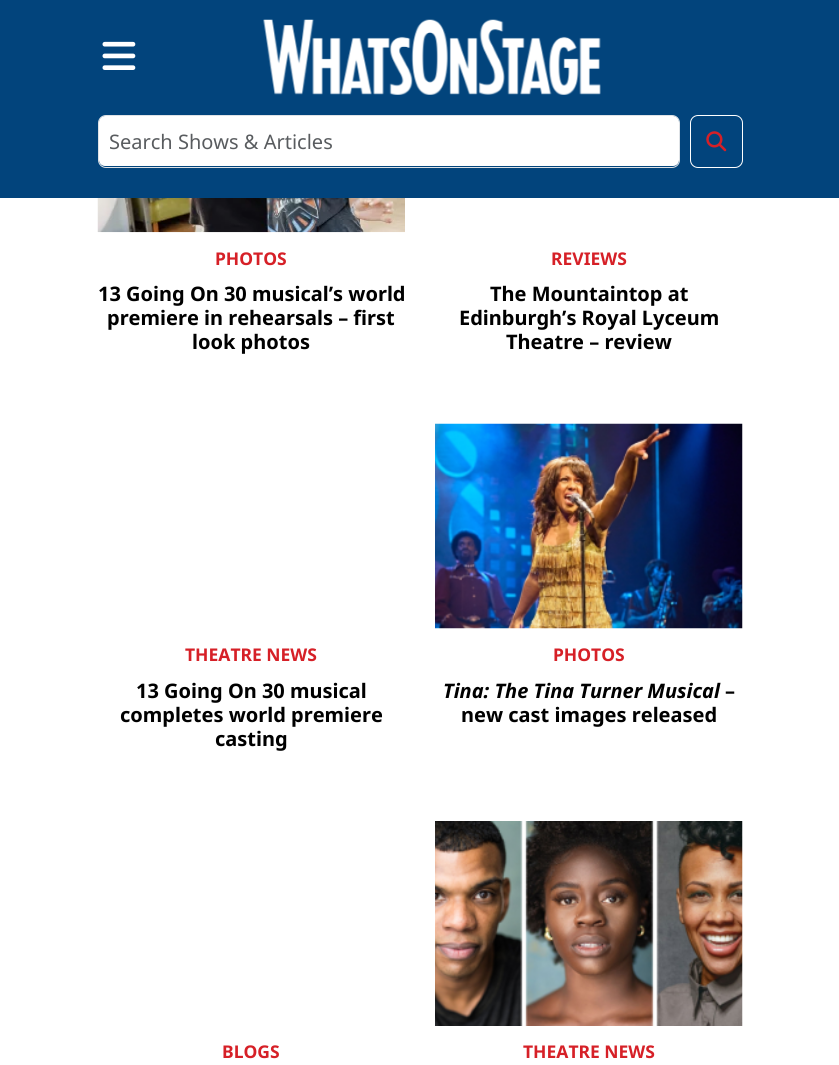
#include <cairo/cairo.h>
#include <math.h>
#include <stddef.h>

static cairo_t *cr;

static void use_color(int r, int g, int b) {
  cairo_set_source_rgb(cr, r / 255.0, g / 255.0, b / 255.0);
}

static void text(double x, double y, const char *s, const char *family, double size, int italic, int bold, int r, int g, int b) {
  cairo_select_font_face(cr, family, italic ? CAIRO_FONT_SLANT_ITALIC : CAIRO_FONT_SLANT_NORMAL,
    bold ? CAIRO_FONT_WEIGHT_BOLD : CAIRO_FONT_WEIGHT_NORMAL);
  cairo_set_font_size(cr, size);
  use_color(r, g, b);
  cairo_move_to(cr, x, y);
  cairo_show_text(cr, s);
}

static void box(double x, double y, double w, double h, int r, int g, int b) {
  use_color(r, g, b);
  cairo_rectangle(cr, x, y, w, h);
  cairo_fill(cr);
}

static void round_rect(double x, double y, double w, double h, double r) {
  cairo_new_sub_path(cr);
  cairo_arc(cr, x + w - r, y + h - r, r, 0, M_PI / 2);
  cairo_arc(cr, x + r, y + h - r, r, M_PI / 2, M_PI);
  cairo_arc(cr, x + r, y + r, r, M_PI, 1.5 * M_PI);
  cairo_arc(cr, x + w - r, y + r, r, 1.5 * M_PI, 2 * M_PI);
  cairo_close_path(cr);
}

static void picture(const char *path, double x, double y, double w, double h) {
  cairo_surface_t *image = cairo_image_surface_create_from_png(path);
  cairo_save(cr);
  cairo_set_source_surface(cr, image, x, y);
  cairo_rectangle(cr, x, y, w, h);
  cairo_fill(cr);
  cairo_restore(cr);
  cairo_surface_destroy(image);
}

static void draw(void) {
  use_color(255, 255, 255);
  cairo_paint(cr);
  box(0, 0, 839, 198, 2, 68, 124);
  picture("img_01.png", 102, 41, 34, 29);
  picture("img_02.png", 263, 19, 338, 76);
  use_color(255, 255, 255);
  round_rect(99, 116, 580, 50, 6);
  cairo_fill(cr);
  round_rect(98.5, 115.5, 581, 52, 7.5);
  use_color(222, 226, 230);
  cairo_set_line_width(cr, 1);
  cairo_stroke(cr);
  round_rect(690.5, 115.5, 52, 52, 7.5);
  use_color(255, 255, 255);
  cairo_stroke(cr);
  picture("img_03.png", 706, 131, 21, 21);
  picture("img_04.png", 97, 198, 308, 35);
  picture("img_05.png", 435, 423, 308, 206);
  picture("img_06.png", 435, 821, 308, 205);
  text(109, 149, "Search Shows & Articles", "Noto Sans", 20, 0, 0, 89, 92, 95);
  text(215, 265, "PHOTOS", "Noto Sans", 17.5, 0, 1, 214, 32, 39);
  text(98, 301, "13 Going On 30 musical’s world", "Noto Sans", 20, 0, 1, 0, 0, 0);
  text(107, 325, "premiere in rehearsals – first", "Noto Sans", 20, 0, 1, 0, 0, 0);
  text(192, 349, "look photos", "Noto Sans", 20, 0, 1, 0, 0, 0);
  text(551, 265, "REVIEWS", "Noto Sans", 17.5, 0, 1, 214, 32, 39);
  text(490, 301, "The Mountaintop at", "Noto Sans", 20, 0, 1, 0, 0, 0);
  text(459, 325, "Edinburgh’s Royal Lyceum", "Noto Sans", 20, 0, 1, 0, 0, 0);
  text(506, 349, "Theatre – review", "Noto Sans", 20, 0, 1, 0, 0, 0);
  text(185, 661, "THEATRE NEWS", "Noto Sans", 17.5, 0, 1, 214, 32, 39);
  text(136, 698, "13 Going On 30 musical", "Noto Sans", 20, 0, 1, 0, 0, 0);
  text(120, 722, "completes world premiere", "Noto Sans", 20, 0, 1, 0, 0, 0);
  text(215, 746, "casting", "Noto Sans", 20, 0, 1, 0, 0, 0);
  text(553, 661, "PHOTOS", "Noto Sans", 17.5, 0, 1, 214, 32, 39);
  text(443, 698, "Tina: The Tina Turner Musical", "Noto Sans", 20, 1, 1, 0, 0, 0);
  text(725, 698, "–", "Noto Sans", 20, 0, 1, 0, 0, 0);
  text(461, 722, "new cast images released", "Noto Sans", 20, 0, 1, 0, 0, 0);
  text(222, 1058, "BLOGS", "Noto Sans", 17.5, 0, 1, 214, 32, 39);
  text(523, 1058, "THEATRE NEWS", "Noto Sans", 17.5, 0, 1, 214, 32, 39);
}

int main(void) {
  cairo_surface_t *surface = cairo_image_surface_create(CAIRO_FORMAT_RGB24, 839, 1065);
  cr = cairo_create(surface);
  cairo_font_options_t *options = cairo_font_options_create();
  cairo_font_options_set_hint_metrics(options, CAIRO_HINT_METRICS_OFF);
  cairo_font_options_set_hint_style(options, CAIRO_HINT_STYLE_NONE);
  cairo_set_font_options(cr, options);
  cairo_set_miter_limit(cr, 4);
  draw();
  cairo_surface_write_to_png(surface, "out.png");
  cairo_font_options_destroy(options);
  cairo_destroy(cr);
  cairo_surface_destroy(surface);
  return 0;
}
